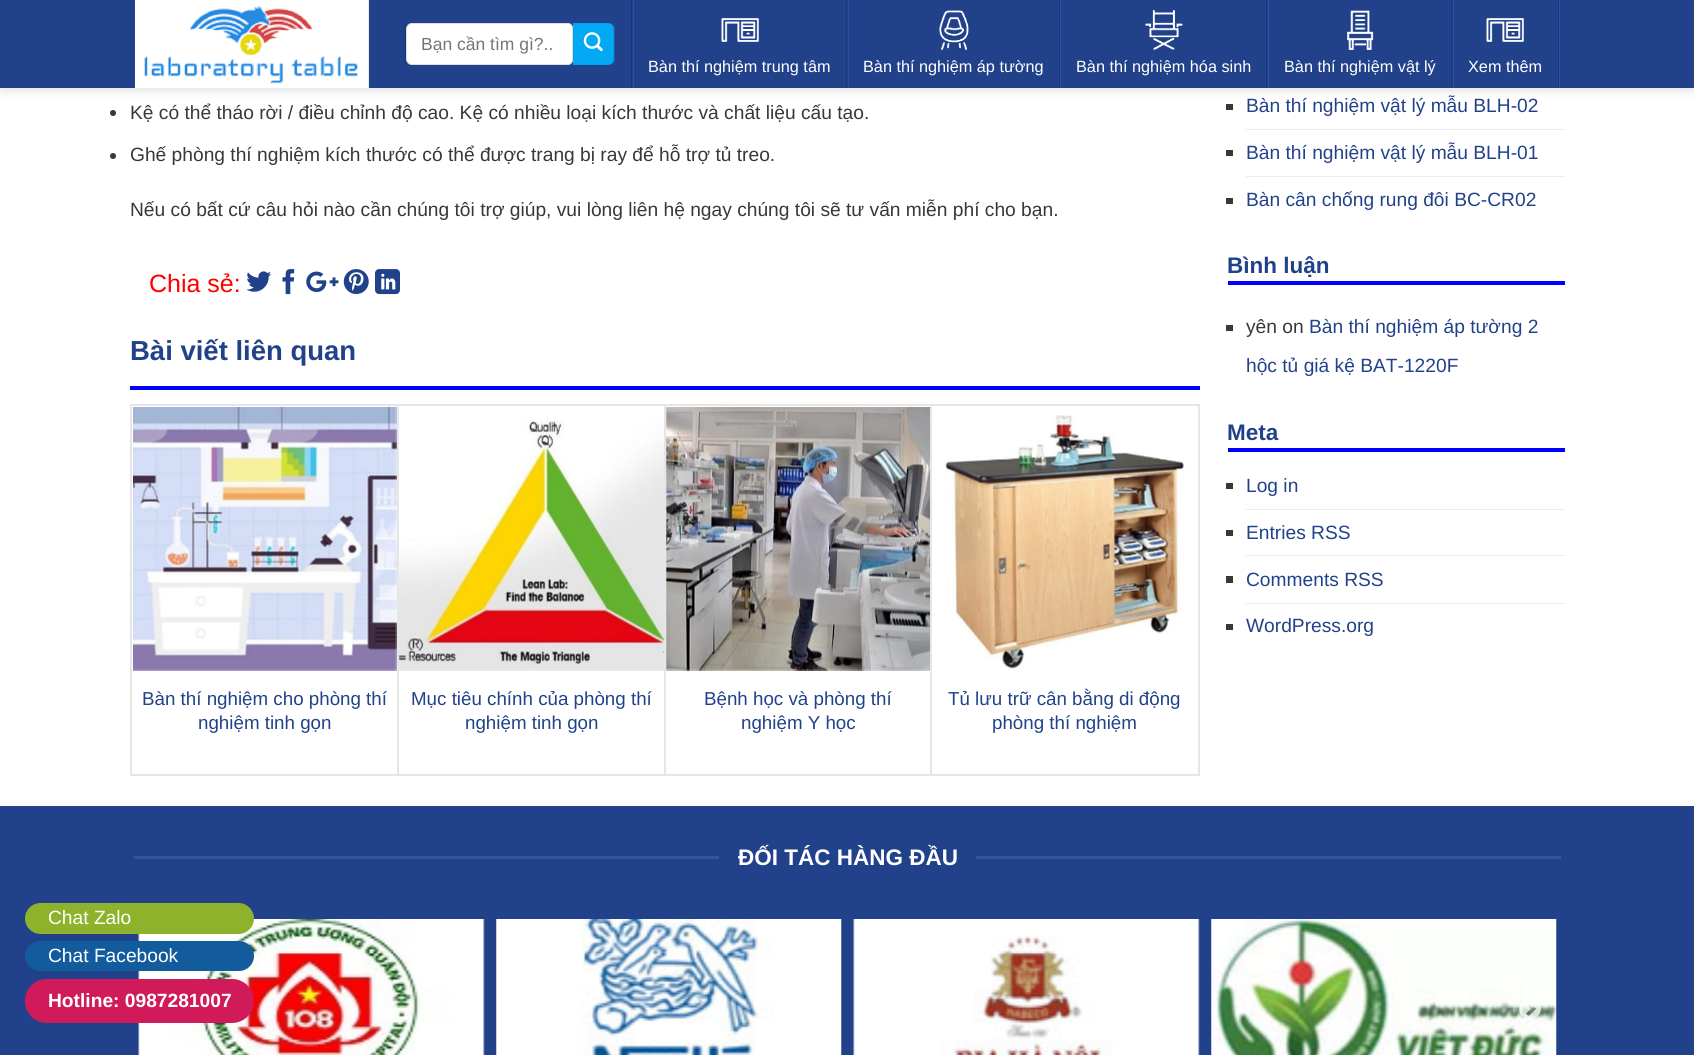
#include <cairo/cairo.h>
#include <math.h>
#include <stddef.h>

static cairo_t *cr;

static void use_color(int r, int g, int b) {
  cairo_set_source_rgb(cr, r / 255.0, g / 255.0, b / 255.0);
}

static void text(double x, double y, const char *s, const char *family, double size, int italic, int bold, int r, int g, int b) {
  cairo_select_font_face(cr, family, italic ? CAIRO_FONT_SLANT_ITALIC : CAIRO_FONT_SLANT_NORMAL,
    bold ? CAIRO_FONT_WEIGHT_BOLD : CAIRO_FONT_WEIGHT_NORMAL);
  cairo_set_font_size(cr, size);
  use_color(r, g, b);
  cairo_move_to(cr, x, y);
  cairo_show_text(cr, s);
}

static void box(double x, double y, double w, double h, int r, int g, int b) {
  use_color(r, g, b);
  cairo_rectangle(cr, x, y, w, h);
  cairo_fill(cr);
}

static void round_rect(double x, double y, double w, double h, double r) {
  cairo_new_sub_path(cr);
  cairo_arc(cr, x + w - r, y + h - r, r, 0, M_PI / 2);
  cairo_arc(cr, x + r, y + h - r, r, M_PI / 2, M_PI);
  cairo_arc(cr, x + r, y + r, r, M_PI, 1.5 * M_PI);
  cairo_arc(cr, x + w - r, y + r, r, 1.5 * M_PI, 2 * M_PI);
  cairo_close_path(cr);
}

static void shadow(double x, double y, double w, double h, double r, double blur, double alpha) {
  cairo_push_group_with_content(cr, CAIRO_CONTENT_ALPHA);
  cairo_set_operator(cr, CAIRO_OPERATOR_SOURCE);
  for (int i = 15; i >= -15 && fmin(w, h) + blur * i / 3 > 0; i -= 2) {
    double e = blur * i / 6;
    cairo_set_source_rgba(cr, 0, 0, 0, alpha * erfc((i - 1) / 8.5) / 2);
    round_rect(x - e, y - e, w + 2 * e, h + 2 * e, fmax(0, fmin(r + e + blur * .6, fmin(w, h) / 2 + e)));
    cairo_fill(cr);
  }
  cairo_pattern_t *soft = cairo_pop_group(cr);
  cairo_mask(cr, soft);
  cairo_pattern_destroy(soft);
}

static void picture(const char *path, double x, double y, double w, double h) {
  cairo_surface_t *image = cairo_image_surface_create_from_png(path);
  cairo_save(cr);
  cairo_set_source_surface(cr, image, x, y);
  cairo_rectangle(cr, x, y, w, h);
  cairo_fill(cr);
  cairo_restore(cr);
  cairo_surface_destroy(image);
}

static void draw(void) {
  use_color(255, 255, 255);
  cairo_paint(cr);
  box(1226, 104, 7, 6, 56, 56, 56);
  use_color(0, 0, 0);
  shadow(1, 1, 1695, 88, 0, 6, 0.15);
  box(0, 0, 1694, 88, 33, 66, 138);
  picture("img_01.png", 135, 0, 234, 88);
  box(614, 23, 1, 42, 41, 81, 167);
  box(405, 23, 1, 42, 24, 55, 123);
  use_color(255, 255, 255);
  cairo_new_path(cr);
  cairo_move_to(cr, 412, 23.5);
  cairo_line_to(cr, 568, 23.5);
  cairo_curve_to(cr, 570.5, 23.5, 572.5, 25.5, 572.5, 28);
  cairo_line_to(cr, 572.5, 60);
  cairo_curve_to(cr, 572.5, 62.5, 570.5, 64.5, 568, 64.5);
  cairo_line_to(cr, 412, 64.5);
  cairo_curve_to(cr, 409, 64.5, 406.5, 62, 406.5, 59);
  cairo_line_to(cr, 406.5, 29);
  cairo_curve_to(cr, 406.5, 26, 409, 23.5, 412, 23.5);
  cairo_close_path(cr);
  cairo_fill_preserve(cr);
  use_color(221, 221, 221);
  cairo_set_line_width(cr, 1);
  cairo_stroke(cr);
  use_color(3, 169, 244);
  cairo_new_path(cr);
  cairo_move_to(cr, 573, 23);
  cairo_line_to(cr, 608, 23);
  cairo_curve_to(cr, 611.5, 23, 614, 25.5, 614, 29);
  cairo_line_to(cr, 614, 59);
  cairo_curve_to(cr, 614, 62.5, 611.5, 65, 608, 65);
  cairo_line_to(cr, 573, 65);
  cairo_close_path(cr);
  cairo_fill(cr);
  cairo_rectangle(cr, 573.5, 23.5, 40, 41);
  cairo_set_source_rgba(cr, 0, 0, 0, 0.05);
  cairo_stroke(cr);
  picture("img_02.png", 583, 32, 20, 20);
  box(631, 0, 1, 88, 24, 55, 123);
  box(846, 0, 1, 88, 24, 55, 123);
  box(633, 0, 1, 88, 41, 81, 167);
  picture("img_03.png", 721, 18, 38, 24);
  box(1059, 0, 1, 88, 24, 55, 123);
  box(848, 0, 1, 88, 41, 81, 167);
  picture("img_04.png", 939, 10, 30, 40);
  box(1266, 0, 1, 88, 24, 55, 123);
  box(1060, 0, 1, 88, 41, 81, 167);
  picture("img_05.png", 1145, 10, 38, 40);
  box(1451, 0, 1, 88, 24, 55, 123);
  box(1268, 0, 1, 88, 41, 81, 167);
  picture("img_06.png", 1347, 10, 27, 40);
  box(1559, 0, 1, 88, 41, 81, 167);
  box(1558, 0, 1, 88, 24, 55, 123);
  box(1453, 0, 1, 88, 41, 81, 167);
  picture("img_03.png", 1486, 18, 38, 24);
  use_color(56, 56, 56);
  cairo_arc(cr, 113, 113, 3, 0, 2 * M_PI);
  cairo_fill(cr);
  cairo_arc(cr, 113, 156, 3, 0, 2 * M_PI);
  cairo_fill(cr);
  picture("img_07.png", 246, 271, 26, 21);
  picture("img_08.png", 282, 269, 13, 26);
  picture("img_09.png", 306, 271, 33, 21);
  picture("img_10.png", 343, 269, 26, 26);
  picture("img_11.png", 375, 269, 25, 26);
  box(130, 386, 1070, 4, 0, 0, 255);
  cairo_rectangle(cr, 130.5, 404.5, 1069, 371);
  use_color(230, 230, 230);
  cairo_stroke(cr);
  cairo_rectangle(cr, 131.5, 405.5, 266, 369);
  cairo_stroke(cr);
  picture("img_12.png", 133, 407, 264, 264);
  cairo_rectangle(cr, 398.5, 405.5, 266, 369);
  cairo_stroke(cr);
  picture("img_13.png", 399, 418, 265, 253);
  cairo_rectangle(cr, 665.5, 405.5, 265, 369);
  cairo_stroke(cr);
  picture("img_14.png", 666, 407, 264, 264);
  cairo_rectangle(cr, 931.5, 405.5, 267, 369);
  cairo_stroke(cr);
  picture("img_15.png", 945, 415, 240, 255);
  box(1246, 129, 319, 1, 236, 236, 236);
  box(1226, 150, 7, 6, 56, 56, 56);
  box(1246, 176, 319, 1, 236, 236, 236);
  box(1226, 198, 7, 6, 56, 56, 56);
  box(1228, 281, 337, 4, 0, 0, 255);
  box(1226, 325, 7, 6, 56, 56, 56);
  box(1228, 448, 337, 4, 0, 0, 255);
  box(1226, 483, 7, 6, 56, 56, 56);
  box(1246, 509, 319, 1, 236, 236, 236);
  box(1226, 530, 7, 6, 56, 56, 56);
  box(1246, 555, 319, 1, 236, 236, 236);
  box(1226, 576, 7, 7, 56, 56, 56);
  box(1246, 603, 319, 1, 236, 236, 236);
  box(1226, 624, 7, 6, 56, 56, 56);
  box(0, 806, 1694, 249, 33, 66, 138);
  box(134, 856, 585, 3, 55, 85, 150);
  box(976, 856, 585, 3, 55, 85, 150);
  picture("img_16.png", 138, 919, 347, 136);
  picture("img_17.png", 496, 919, 346, 136);
  picture("img_18.png", 853, 919, 347, 136);
  picture("img_19.png", 1211, 919, 346, 136);
  picture("img_20.png", 1519, 1004, 22, 15);
  use_color(142, 178, 43);
  round_rect(25, 903, 229, 31, 15.5);
  cairo_fill(cr);
  use_color(18, 92, 158);
  round_rect(25, 941, 229, 30, 15);
  cairo_fill(cr);
  use_color(209, 26, 89);
  round_rect(25, 979, 229, 44, 22);
  cairo_fill(cr);
  text(421, 50, "Bạn cần tìm gì?..", "Liberation Sans", 17.5, 0, 0, 117, 117, 117);
  text(648, 72, "Bàn thí nghiệm trung tâm", "Liberation Sans", 16.25, 0, 0, 255, 255, 255);
  text(863, 72, "Bàn thí nghiệm áp tường", "Liberation Sans", 16.25, 0, 0, 255, 255, 255);
  text(1076, 72, "Bàn thí nghiệm hóa sinh", "Liberation Sans", 16.25, 0, 0, 255, 255, 255);
  text(1284, 72, "Bàn thí nghiệm vật lý", "Liberation Sans", 16.25, 0, 0, 255, 255, 255);
  text(1468, 72, "Xem thêm", "Liberation Sans", 16.25, 0, 0, 255, 255, 255);
  text(130, 119, "Kệ có thể tháo rời / điều chỉnh độ cao. Kệ có nhiều loại kích thước và chất liệu cấu tạo.", "Liberation Sans", 19.2, 0, 0, 56, 56, 56);
  text(130, 161, "Ghế phòng thí nghiệm kích thước có thể được trang bị ray để hỗ trợ tủ treo.", "Liberation Sans", 19.2, 0, 0, 56, 56, 56);
  text(130, 216, "Nếu có bất cứ câu hỏi nào cần chúng tôi trợ giúp, vui lòng liên hệ ngay chúng tôi sẽ tư vấn miễn phí cho bạn.", "Liberation Sans", 19.2, 0, 0, 56, 56, 56);
  text(149, 292, "Chia sẻ:", "Liberation Sans", 25, 0, 0, 255, 0, 0);
  text(130, 360, "Bài viết liên quan", "Liberation Sans", 27.5, 0, 1, 33, 66, 138);
  text(142, 705, "Bàn thí nghiệm cho phòng thí", "Liberation Sans", 18.75, 0, 0, 33, 66, 138);
  text(198, 729, "nghiệm tinh gọn", "Liberation Sans", 18.75, 0, 0, 33, 66, 138);
  text(411, 705, "Mục tiêu chính của phòng thí", "Liberation Sans", 18.75, 0, 0, 33, 66, 138);
  text(465, 729, "nghiệm tinh gọn", "Liberation Sans", 18.75, 0, 0, 33, 66, 138);
  text(704, 705, "Bệnh học và phòng thí", "Liberation Sans", 18.75, 0, 0, 33, 66, 138);
  text(741, 729, "nghiệm Y học", "Liberation Sans", 18.75, 0, 0, 33, 66, 138);
  text(948, 705, "Tủ lưu trữ cân bằng di động", "Liberation Sans", 18.75, 0, 0, 33, 66, 138);
  text(992, 729, "phòng thí nghiệm", "Liberation Sans", 18.75, 0, 0, 33, 66, 138);
  text(1246, 112, "Bàn thí nghiệm vật lý mẫu BLH-02", "Liberation Sans", 19.2, 0, 0, 33, 66, 138);
  text(1246, 159, "Bàn thí nghiệm vật lý mẫu BLH-01", "Liberation Sans", 19.2, 0, 0, 33, 66, 138);
  text(1246, 206, "Bàn cân chống rung đôi BC-CR02", "Liberation Sans", 19.2, 0, 0, 33, 66, 138);
  text(1227, 273, "Bình luận", "Liberation Sans", 22.5, 0, 1, 33, 66, 138);
  text(1246, 333, "yên on", "Liberation Sans", 19.2, 0, 0, 56, 56, 56);
  text(1309, 333, "Bàn thí nghiệm áp tường 2", "Liberation Sans", 19.2, 0, 0, 33, 66, 138);
  text(1246, 372, "hộc tủ giá kệ BAT-1220F", "Liberation Sans", 19.2, 0, 0, 33, 66, 138);
  text(1227, 440, "Meta", "Liberation Sans", 22.5, 0, 1, 33, 66, 138);
  text(1246, 492, "Log in", "Liberation Sans", 19.2, 0, 0, 33, 66, 138);
  text(1246, 539, "Entries RSS", "Liberation Sans", 19.2, 0, 0, 33, 66, 138);
  text(1246, 586, "Comments RSS", "Liberation Sans", 19.2, 0, 0, 33, 66, 138);
  text(1246, 632, "WordPress.org", "Liberation Sans", 19.2, 0, 0, 33, 66, 138);
  text(738, 865, "ĐỐI TÁC HÀNG ĐẦU", "Liberation Sans", 22.5, 0, 1, 255, 255, 255);
  text(48, 924, "Chat Zalo", "Liberation Sans", 19.2, 0, 0, 255, 255, 255);
  text(48, 962, "Chat Facebook", "Liberation Sans", 19.2, 0, 0, 255, 255, 255);
  text(48, 1007, "Hotline: 0987281007", "Liberation Sans", 19.2, 0, 1, 255, 255, 255);
}

int main(void) {
  cairo_surface_t *surface = cairo_image_surface_create(CAIRO_FORMAT_RGB24, 1694, 1055);
  cr = cairo_create(surface);
  cairo_font_options_t *options = cairo_font_options_create();
  cairo_font_options_set_hint_metrics(options, CAIRO_HINT_METRICS_OFF);
  cairo_font_options_set_hint_style(options, CAIRO_HINT_STYLE_NONE);
  cairo_set_font_options(cr, options);
  cairo_set_miter_limit(cr, 4);
  draw();
  cairo_surface_write_to_png(surface, "out.png");
  cairo_font_options_destroy(options);
  cairo_destroy(cr);
  cairo_surface_destroy(surface);
  return 0;
}
